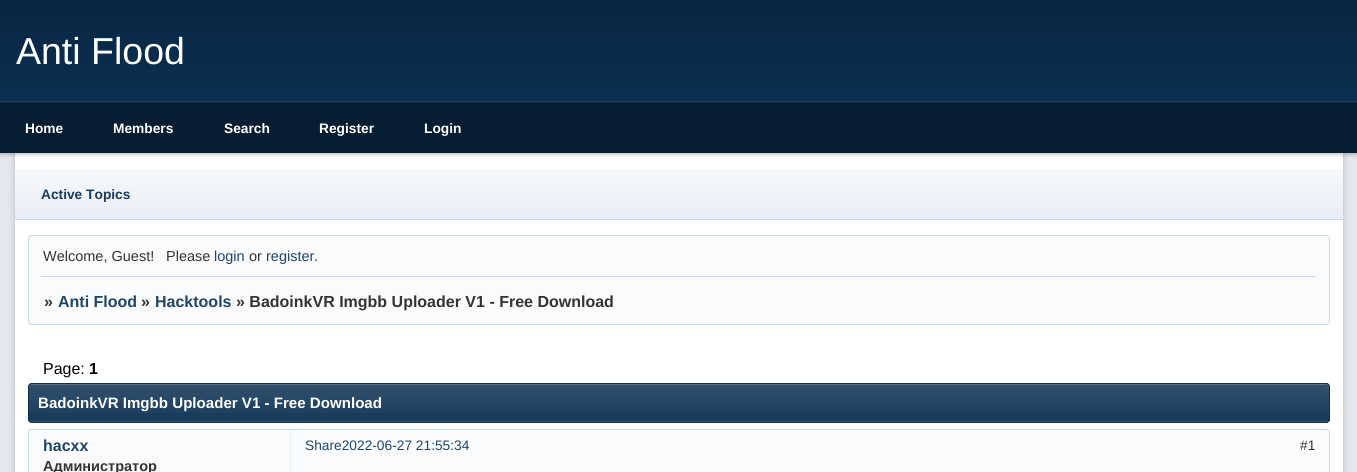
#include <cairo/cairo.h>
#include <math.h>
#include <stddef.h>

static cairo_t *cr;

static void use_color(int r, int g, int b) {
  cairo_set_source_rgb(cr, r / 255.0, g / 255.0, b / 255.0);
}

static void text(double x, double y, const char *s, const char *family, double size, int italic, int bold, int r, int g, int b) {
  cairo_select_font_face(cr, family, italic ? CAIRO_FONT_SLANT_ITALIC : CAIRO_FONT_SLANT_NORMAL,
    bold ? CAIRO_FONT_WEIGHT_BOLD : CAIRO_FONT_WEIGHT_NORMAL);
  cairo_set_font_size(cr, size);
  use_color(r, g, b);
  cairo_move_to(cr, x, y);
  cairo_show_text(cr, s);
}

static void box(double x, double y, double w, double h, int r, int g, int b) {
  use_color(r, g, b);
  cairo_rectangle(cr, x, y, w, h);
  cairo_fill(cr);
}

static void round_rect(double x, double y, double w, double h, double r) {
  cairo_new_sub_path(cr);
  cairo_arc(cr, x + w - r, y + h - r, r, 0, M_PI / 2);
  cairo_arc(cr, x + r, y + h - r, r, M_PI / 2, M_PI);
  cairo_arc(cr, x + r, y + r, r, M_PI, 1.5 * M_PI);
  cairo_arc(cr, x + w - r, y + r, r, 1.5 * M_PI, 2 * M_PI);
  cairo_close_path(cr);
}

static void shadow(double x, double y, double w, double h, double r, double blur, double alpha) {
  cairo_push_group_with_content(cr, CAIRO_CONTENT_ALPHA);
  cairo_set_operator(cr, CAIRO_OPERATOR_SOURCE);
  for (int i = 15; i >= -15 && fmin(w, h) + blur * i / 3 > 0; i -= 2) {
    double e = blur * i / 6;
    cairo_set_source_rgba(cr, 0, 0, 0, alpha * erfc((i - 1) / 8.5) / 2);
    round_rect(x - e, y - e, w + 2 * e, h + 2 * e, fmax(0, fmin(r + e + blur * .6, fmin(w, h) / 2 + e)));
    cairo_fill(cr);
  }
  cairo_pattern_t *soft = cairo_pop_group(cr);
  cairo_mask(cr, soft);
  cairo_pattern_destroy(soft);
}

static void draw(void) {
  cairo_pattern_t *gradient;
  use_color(228, 232, 240);
  cairo_paint(cr);
  use_color(0, 0, 0);
  shadow(15, 0, 1328, 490, 6, 4, 0.2);
  box(15, 153, 1328, 319, 255, 255, 255);
  gradient = cairo_pattern_create_linear(679, 0, 679, 153);
  cairo_pattern_add_color_stop_rgba(gradient, 0, 0.035, 0.149, 0.259, 1);
  cairo_pattern_add_color_stop_rgba(gradient, 0.7, 0.043, 0.188, 0.322, 1);
  cairo_set_source(cr, gradient);
  cairo_pattern_destroy(gradient);
  cairo_rectangle(cr, 0, 0, 1357, 153);
  cairo_fill(cr);
  cairo_save(cr);
  cairo_set_fill_rule(cr, CAIRO_FILL_RULE_EVEN_ODD);
  cairo_new_path(cr);
  cairo_move_to(cr, 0, 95);
  cairo_line_to(cr, 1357, 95);
  cairo_line_to(cr, 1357, 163);
  cairo_line_to(cr, 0, 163);
  cairo_close_path(cr);
  cairo_move_to(cr, 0, 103);
  cairo_line_to(cr, 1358, 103);
  cairo_line_to(cr, 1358, 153);
  cairo_line_to(cr, 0, 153);
  cairo_close_path(cr);
  cairo_clip(cr);
  use_color(0, 0, 0);
  shadow(0, 104, 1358, 50, 0, 2.5, 0.3);
  cairo_restore(cr);
  use_color(30, 62, 91);
  cairo_new_path(cr);
  cairo_move_to(cr, 0, 101);
  cairo_line_to(cr, 0, 102);
  cairo_line_to(cr, 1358, 102);
  cairo_line_to(cr, 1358, 151);
  cairo_line_to(cr, 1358, 101);
  cairo_close_path(cr);
  cairo_fill(cr);
  cairo_set_source_rgba(cr, 0, 0, 0, 0.4);
  cairo_rectangle(cr, 0, 103, 1357, 50);
  cairo_fill(cr);
  gradient = cairo_pattern_create_linear(679, 169, 679, 219);
  cairo_pattern_add_color_stop_rgba(gradient, 0, 0.965, 0.973, 0.984, 1);
  cairo_pattern_add_color_stop_rgba(gradient, 1, 0.91, 0.929, 0.961, 1);
  cairo_set_source(cr, gradient);
  cairo_pattern_destroy(gradient);
  cairo_rectangle(cr, 15, 169, 1328, 50);
  cairo_fill(cr);
  box(15, 219, 1328, 1, 201, 218, 235);
  use_color(250, 251, 252);
  cairo_new_path(cr);
  cairo_move_to(cr, 32, 235);
  cairo_line_to(cr, 1326, 235);
  cairo_curve_to(cr, 1328, 235, 1330, 237, 1330, 239);
  cairo_line_to(cr, 1330, 279);
  cairo_line_to(cr, 28, 279);
  cairo_line_to(cr, 28, 239);
  cairo_curve_to(cr, 28, 237, 30, 235, 32, 235);
  cairo_close_path(cr);
  cairo_fill(cr);
  use_color(201, 218, 235);
  cairo_set_fill_rule(cr, CAIRO_FILL_RULE_EVEN_ODD);
  cairo_new_path(cr);
  cairo_move_to(cr, 31, 235);
  cairo_line_to(cr, 1326, 235);
  cairo_curve_to(cr, 1328, 235, 1330, 237, 1330, 239);
  cairo_line_to(cr, 1330, 279);
  cairo_line_to(cr, 28, 279);
  cairo_line_to(cr, 28, 239);
  cairo_curve_to(cr, 28, 237, 29, 235, 31, 235);
  cairo_close_path(cr);
  cairo_move_to(cr, 31, 236);
  cairo_line_to(cr, 1326, 236);
  cairo_curve_to(cr, 1328, 236, 1329, 237, 1329, 239);
  cairo_line_to(cr, 1329, 279);
  cairo_line_to(cr, 29, 279);
  cairo_line_to(cr, 29, 239);
  cairo_curve_to(cr, 29, 237, 30, 236, 31, 236);
  cairo_close_path(cr);
  cairo_fill(cr);
  use_color(250, 251, 252);
  cairo_new_path(cr);
  cairo_move_to(cr, 28, 276);
  cairo_line_to(cr, 1330, 276);
  cairo_line_to(cr, 1330, 321);
  cairo_curve_to(cr, 1330, 323, 1328, 325, 1326, 325);
  cairo_line_to(cr, 32, 325);
  cairo_curve_to(cr, 30, 325, 28, 323, 28, 321);
  cairo_close_path(cr);
  cairo_fill(cr);
  use_color(201, 218, 235);
  cairo_new_path(cr);
  cairo_move_to(cr, 28, 276);
  cairo_line_to(cr, 1330, 276);
  cairo_line_to(cr, 1330, 321);
  cairo_curve_to(cr, 1330, 323, 1328, 325, 1326, 325);
  cairo_line_to(cr, 31, 325);
  cairo_curve_to(cr, 29, 325, 28, 323, 28, 321);
  cairo_close_path(cr);
  cairo_move_to(cr, 29, 276);
  cairo_line_to(cr, 1329, 276);
  cairo_line_to(cr, 1329, 321);
  cairo_curve_to(cr, 1329, 323, 1328, 324, 1326, 324);
  cairo_line_to(cr, 31, 324);
  cairo_curve_to(cr, 30, 324, 29, 323, 29, 321);
  cairo_close_path(cr);
  cairo_fill(cr);
  box(41, 276, 1275, 1, 201, 218, 235);
  use_color(25, 60, 92);
  round_rect(28, 383, 1302, 40, 4);
  cairo_fill(cr);
  gradient = cairo_pattern_create_linear(679, 384, 679, 421);
  cairo_pattern_add_color_stop_rgba(gradient, 0, 1, 1, 1, 0.1);
  cairo_pattern_add_color_stop_rgba(gradient, 1, 1, 1, 1, 0);
  cairo_set_source(cr, gradient);
  cairo_pattern_destroy(gradient);
  cairo_rectangle(cr, 28, 384, 1302, 29);
  cairo_fill(cr);
  cairo_save(cr);
  cairo_set_fill_rule(cr, CAIRO_FILL_RULE_WINDING);
  round_rect(28, 383, 1302, 40, 4);
  cairo_clip(cr);
  gradient = cairo_pattern_create_linear(679, 421, 679, 459);
  cairo_pattern_add_color_stop_rgba(gradient, 0, 1, 1, 1, 0.1);
  cairo_pattern_add_color_stop_rgba(gradient, 1, 1, 1, 1, 0);
  cairo_set_source(cr, gradient);
  cairo_pattern_destroy(gradient);
  cairo_rectangle(cr, 28, 421, 1302, 2);
  cairo_fill(cr);
  cairo_restore(cr);
  use_color(89, 114, 137);
  cairo_set_fill_rule(cr, CAIRO_FILL_RULE_WINDING);
  cairo_new_path(cr);
  cairo_move_to(cr, 31, 385);
  cairo_line_to(cr, 1326, 385);
  cairo_curve_to(cr, 1328, 385, 1329, 386, 1329, 388);
  cairo_line_to(cr, 1329, 386);
  cairo_curve_to(cr, 1329, 385, 1328, 384, 1326, 384);
  cairo_line_to(cr, 32, 384);
  cairo_curve_to(cr, 30, 384, 29, 385, 29, 386);
  cairo_line_to(cr, 29, 388);
  cairo_curve_to(cr, 29, 386, 30, 385, 31, 385);
  cairo_close_path(cr);
  cairo_fill(cr);
  round_rect(28.5, 383.5, 1301, 39, 3.5);
  use_color(19, 48, 74);
  cairo_set_line_width(cr, 1);
  cairo_stroke(cr);
  use_color(250, 251, 252);
  cairo_new_path(cr);
  cairo_move_to(cr, 32, 429);
  cairo_line_to(cr, 1326, 429);
  cairo_curve_to(cr, 1328, 429, 1330, 431, 1330, 433);
  cairo_line_to(cr, 1330, 459);
  cairo_line_to(cr, 28, 459);
  cairo_line_to(cr, 28, 433);
  cairo_curve_to(cr, 28, 431, 30, 429, 32, 429);
  cairo_close_path(cr);
  cairo_fill(cr);
  use_color(201, 218, 235);
  cairo_set_fill_rule(cr, CAIRO_FILL_RULE_EVEN_ODD);
  cairo_new_path(cr);
  cairo_move_to(cr, 31, 429);
  cairo_line_to(cr, 1326, 429);
  cairo_curve_to(cr, 1328, 429, 1330, 430, 1330, 432);
  cairo_line_to(cr, 1330, 459);
  cairo_line_to(cr, 28, 459);
  cairo_line_to(cr, 28, 432);
  cairo_curve_to(cr, 28, 430, 29, 429, 31, 429);
  cairo_close_path(cr);
  cairo_move_to(cr, 31, 430);
  cairo_line_to(cr, 1326, 430);
  cairo_curve_to(cr, 1328, 430, 1329, 431, 1329, 432);
  cairo_line_to(cr, 1329, 459);
  cairo_line_to(cr, 29, 459);
  cairo_line_to(cr, 29, 432);
  cairo_curve_to(cr, 29, 431, 30, 430, 31, 430);
  cairo_close_path(cr);
  cairo_fill(cr);
  box(290, 430, 1, 29, 232, 237, 245);
  box(29, 458, 1300, 14, 250, 251, 252);
  use_color(201, 218, 235);
  cairo_new_path(cr);
  cairo_move_to(cr, 28, 458);
  cairo_line_to(cr, 1330, 458);
  cairo_line_to(cr, 1330, 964);
  cairo_curve_to(cr, 1330, 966, 1328, 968, 1326, 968);
  cairo_line_to(cr, 31, 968);
  cairo_curve_to(cr, 29, 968, 28, 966, 28, 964);
  cairo_close_path(cr);
  cairo_move_to(cr, 29, 458);
  cairo_line_to(cr, 1329, 458);
  cairo_line_to(cr, 1329, 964);
  cairo_curve_to(cr, 1329, 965, 1328, 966, 1326, 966);
  cairo_line_to(cr, 31, 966);
  cairo_curve_to(cr, 30, 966, 29, 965, 29, 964);
  cairo_close_path(cr);
  cairo_fill(cr);
  box(290, 458, 1, 14, 232, 237, 245);
  text(16, 64, "Anti Flood", "Liberation Sans", 37.5, 0, 0, 255, 255, 255);
  text(25, 133, "Home", "Liberation Sans", 13.75, 0, 1, 255, 255, 255);
  text(113, 133, "Members", "Liberation Sans", 13.75, 0, 1, 255, 255, 255);
  text(224, 133, "Search", "Liberation Sans", 13.75, 0, 1, 255, 255, 255);
  text(319, 133, "Register", "Liberation Sans", 13.75, 0, 1, 255, 255, 255);
  text(424, 133, "Login", "Liberation Sans", 13.75, 0, 1, 255, 255, 255);
  text(41, 199, "Active Topics", "Liberation Sans", 13.75, 0, 1, 25, 60, 92);
  text(43, 261, "Welcome, Guest!", "Liberation Sans", 14.5, 0, 0, 51, 51, 51);
  text(166, 261, "Please", "Liberation Sans", 14.5, 0, 0, 51, 51, 51);
  text(214, 261, "login", "Liberation Sans", 14.5, 0, 0, 32, 69, 103);
  text(249, 261, "or", "Liberation Sans", 14.5, 0, 0, 51, 51, 51);
  text(266, 261, "register", "Liberation Sans", 14.5, 0, 0, 32, 69, 103);
  text(314, 261, ".", "Liberation Sans", 14.5, 0, 0, 51, 51, 51);
  text(44, 307, "»", "Liberation Sans", 16, 0, 1, 51, 51, 51);
  text(58, 307, "Anti Flood", "Liberation Sans", 16, 0, 1, 32, 69, 103);
  text(141, 307, "»", "Liberation Sans", 16, 0, 1, 51, 51, 51);
  text(155, 307, "Hacktools", "Liberation Sans", 16, 0, 1, 32, 69, 103);
  text(236, 307, "» BadoinkVR Imgbb Uploader V1 - Free Download", "Liberation Sans", 16, 0, 1, 51, 51, 51);
  text(43, 374, "Page:", "Liberation Sans", 16, 0, 0, 0, 0, 0);
  text(89, 374, "1", "Liberation Sans", 16, 0, 1, 0, 0, 0);
  text(38, 408, "BadoinkVR Imgbb Uploader V1 - Free Download", "Liberation Sans", 15.1, 0, 1, 255, 255, 255);
  text(43, 451, "hacxx", "Liberation Sans", 16, 0, 1, 32, 69, 103);
  text(43, 471, "Администратор", "Liberation Sans", 14.5, 0, 1, 51, 51, 51);
  text(305, 450, "Share2022-06-27 21:55:34", "Liberation Sans", 13.75, 0, 0, 32, 69, 103);
  text(1300, 450, "#1", "Liberation Sans", 13.75, 0, 0, 51, 51, 51);
}

int main(void) {
  cairo_surface_t *surface = cairo_image_surface_create(CAIRO_FORMAT_RGB24, 1357, 472);
  cr = cairo_create(surface);
  cairo_font_options_t *options = cairo_font_options_create();
  cairo_font_options_set_hint_metrics(options, CAIRO_HINT_METRICS_OFF);
  cairo_font_options_set_hint_style(options, CAIRO_HINT_STYLE_NONE);
  cairo_set_font_options(cr, options);
  cairo_set_miter_limit(cr, 4);
  draw();
  cairo_surface_write_to_png(surface, "out.png");
  cairo_font_options_destroy(options);
  cairo_destroy(cr);
  cairo_surface_destroy(surface);
  return 0;
}
